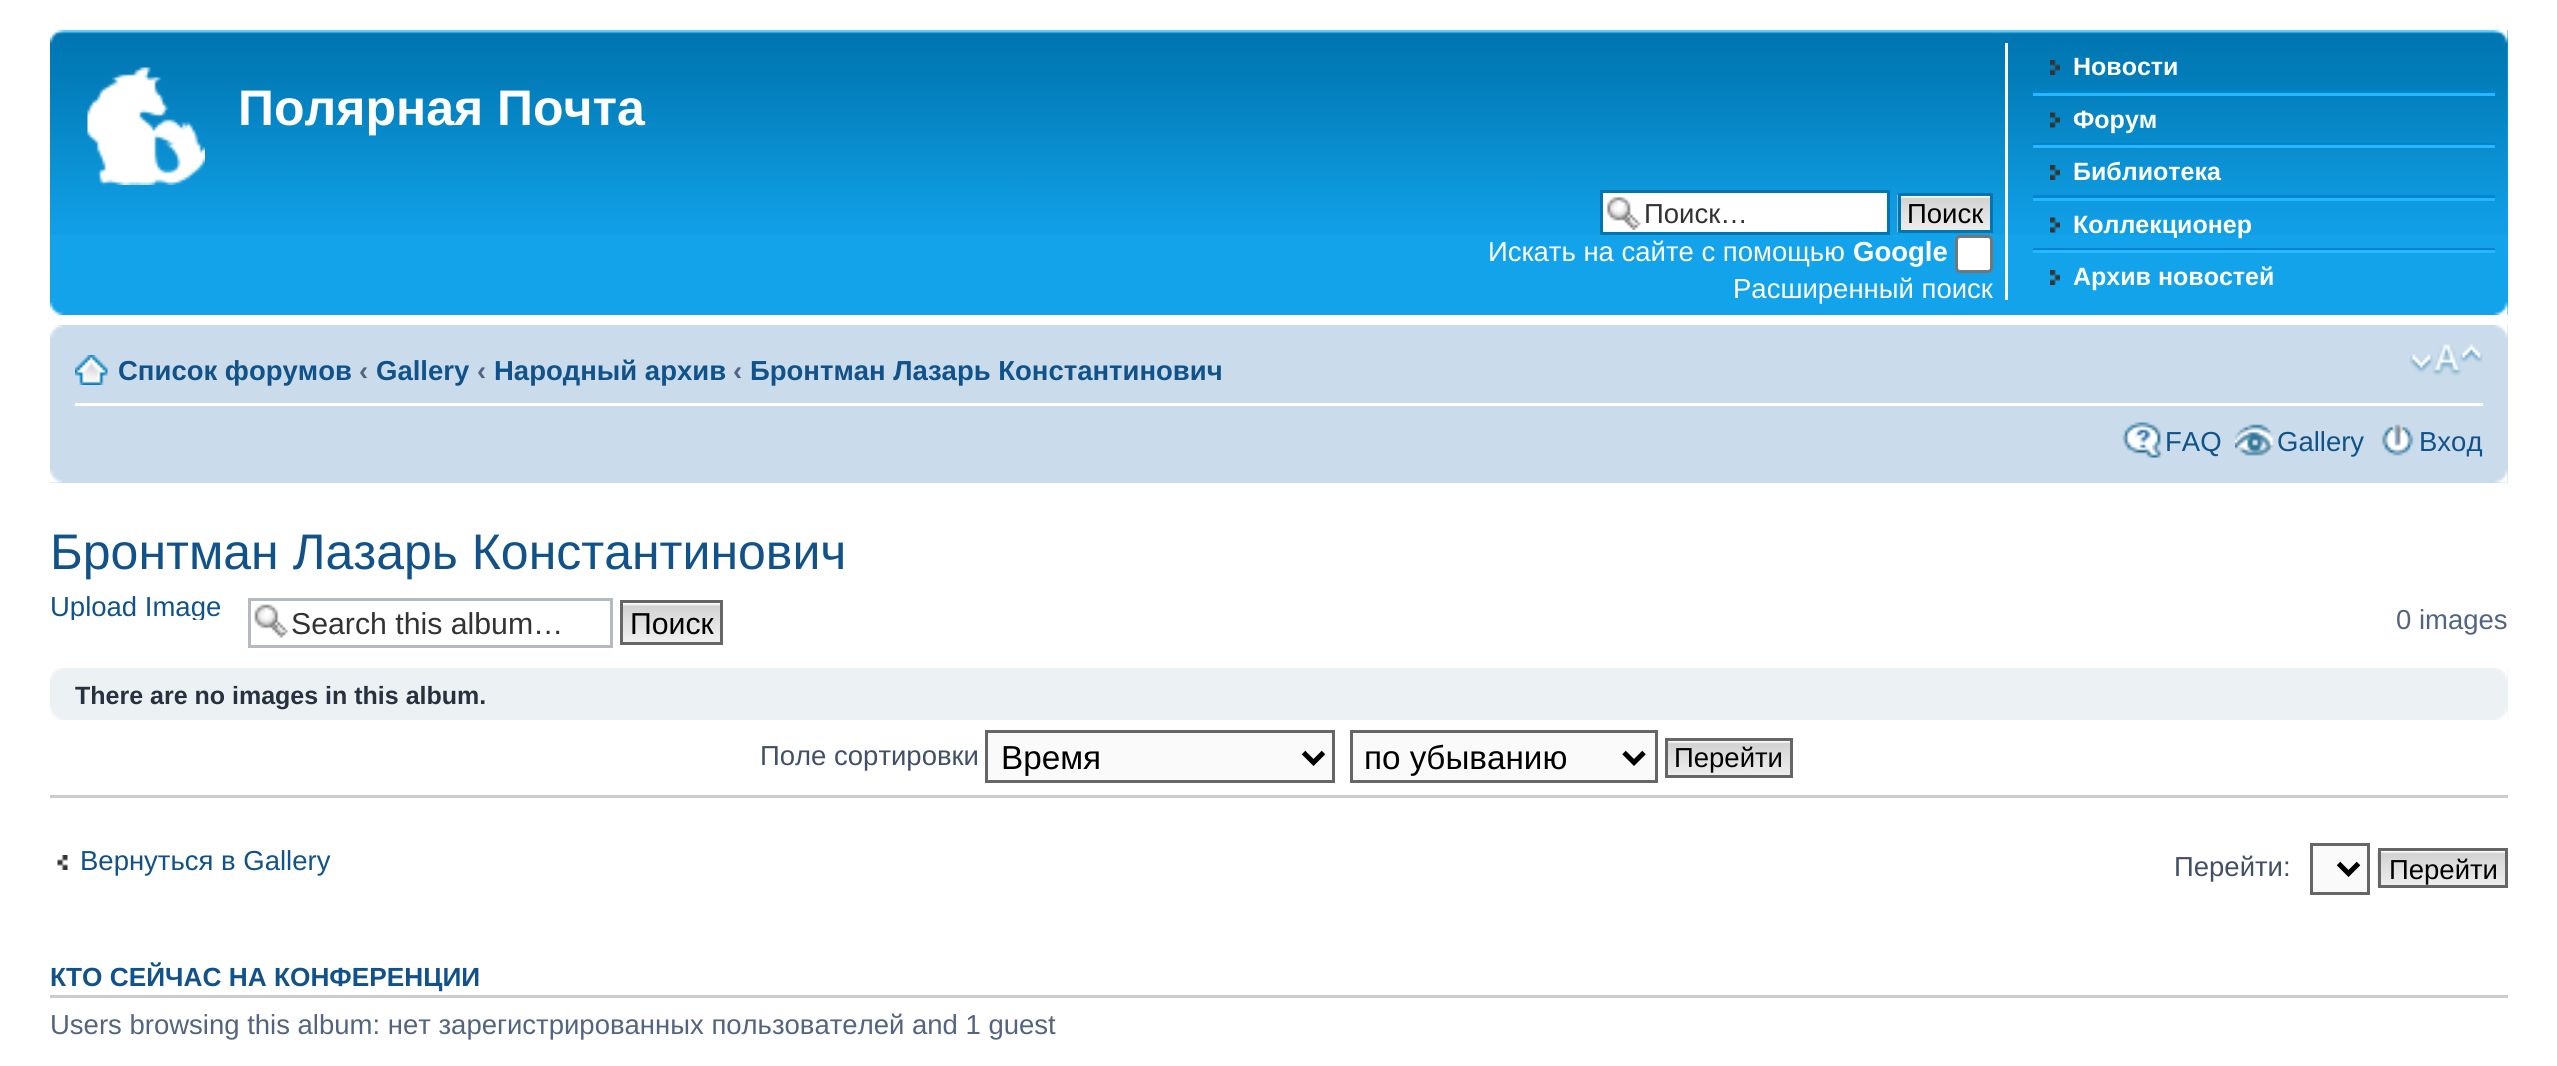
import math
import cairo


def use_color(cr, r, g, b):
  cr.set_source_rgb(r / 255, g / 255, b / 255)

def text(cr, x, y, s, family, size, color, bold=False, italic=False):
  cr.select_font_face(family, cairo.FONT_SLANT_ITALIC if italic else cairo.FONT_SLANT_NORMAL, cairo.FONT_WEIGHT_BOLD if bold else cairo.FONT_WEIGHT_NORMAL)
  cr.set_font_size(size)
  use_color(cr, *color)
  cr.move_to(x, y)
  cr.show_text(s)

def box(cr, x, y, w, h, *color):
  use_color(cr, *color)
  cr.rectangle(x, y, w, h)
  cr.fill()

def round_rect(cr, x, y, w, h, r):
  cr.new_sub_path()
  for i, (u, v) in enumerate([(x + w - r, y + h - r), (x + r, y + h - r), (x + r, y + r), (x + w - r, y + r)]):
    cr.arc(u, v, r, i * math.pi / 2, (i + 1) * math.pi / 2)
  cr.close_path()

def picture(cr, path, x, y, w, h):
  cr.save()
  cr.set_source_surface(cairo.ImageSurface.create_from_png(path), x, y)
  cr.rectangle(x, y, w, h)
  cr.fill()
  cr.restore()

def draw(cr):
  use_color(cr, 255, 255, 255)
  cr.paint()
  box(cr, 50, 30, 2458, 285, 18, 163, 235)
  picture(cr, "img_01.png", 50, 30, 2458, 205)
  picture(cr, "img_02.png", 50, 30, 14, 13)
  picture(cr, "img_03.png", 2494, 30, 14, 13)
  picture(cr, "img_04.png", 87, 67, 118, 118)
  box(cr, 2005, 43, 3, 257, 255, 255, 255)
  box(cr, 2033, 90, 462, 3, 0, 132, 204)
  picture(cr, "img_05.png", 2050, 60, 10, 15)
  box(cr, 2033, 93, 462, 3, 38, 183, 255)
  box(cr, 2033, 143, 462, 2, 0, 132, 204)
  picture(cr, "img_06.png", 2050, 112, 10, 16)
  box(cr, 2033, 145, 462, 3, 38, 183, 255)
  box(cr, 2033, 195, 462, 3, 0, 132, 204)
  picture(cr, "img_07.png", 2050, 165, 10, 15)
  box(cr, 2033, 198, 462, 3, 38, 183, 255)
  box(cr, 2033, 248, 462, 2, 0, 132, 204)
  picture(cr, "img_08.png", 2050, 217, 10, 16)
  box(cr, 2033, 250, 462, 3, 38, 183, 255)
  picture(cr, "img_09.png", 2050, 270, 10, 15)
  box(cr, 1603, 193, 284, 39, 255, 255, 255)
  picture(cr, "img_10.png", 1606, 196, 35, 34)
  cr.rectangle(1601.5, 191.5, 287, 42)
  use_color(cr, 0, 117, 176)
  cr.set_line_width(3)
  cr.stroke()
  picture(cr, "img_11.png", 1897, 195, 93, 38)
  cr.rectangle(1899.5, 194.5, 92, 37)
  cr.stroke()
  use_color(cr, 255, 255, 255)
  round_rect(cr, 1956.5, 236.5, 35, 35, 3.5)
  cr.fill_preserve()
  use_color(cr, 118, 118, 118)
  cr.stroke()
  picture(cr, "img_12.png", 50, 302, 14, 13)
  picture(cr, "img_13.png", 2494, 302, 14, 13)
  box(cr, 50, 325, 2458, 158, 202, 220, 235)
  picture(cr, "img_14.png", 50, 325, 13, 13)
  picture(cr, "img_15.png", 2494, 325, 14, 13)
  box(cr, 75, 403, 2408, 3, 255, 255, 255)
  picture(cr, "img_16.png", 75, 355, 33, 30)
  picture(cr, "img_17.png", 2410, 344, 73, 32)
  picture(cr, "img_18.png", 2122, 422, 41, 36)
  picture(cr, "img_19.png", 2235, 424, 39, 32)
  picture(cr, "img_20.png", 2381, 424, 33, 32)
  picture(cr, "img_21.png", 50, 470, 13, 13)
  picture(cr, "img_22.png", 2495, 470, 13, 13)
  picture(cr, "img_23.png", 254, 604, 35, 34)
  cr.rectangle(249.5, 599.5, 362, 47)
  use_color(cr, 180, 186, 192)
  cr.stroke()
  picture(cr, "img_24.png", 623, 603, 97, 39)
  cr.rectangle(621.5, 601.5, 100, 42)
  use_color(cr, 102, 102, 102)
  cr.stroke()
  box(cr, 50, 668, 2458, 52, 236, 241, 243)
  picture(cr, "img_25.png", 50, 668, 12, 12)
  picture(cr, "img_26.png", 2496, 668, 12, 12)
  picture(cr, "img_27.png", 50, 708, 12, 12)
  picture(cr, "img_28.png", 2496, 708, 12, 12)
  use_color(cr, 250, 250, 250)
  cr.rectangle(986.5, 731.5, 347, 50)
  cr.fill_preserve()
  use_color(cr, 102, 102, 102)
  cr.stroke()
  cr.new_path()
  cr.move_to(1303.5, 752.5)
  cr.line_to(1313.5, 762.5)
  cr.line_to(1323.5, 752.5)
  use_color(cr, 0, 0, 0)
  cr.set_line_width(5)
  cr.stroke()
  use_color(cr, 250, 250, 250)
  cr.rectangle(1351.5, 731.5, 305, 50)
  cr.fill_preserve()
  use_color(cr, 102, 102, 102)
  cr.set_line_width(3)
  cr.stroke()
  cr.new_path()
  cr.move_to(1624, 752.5)
  cr.line_to(1634, 762.5)
  cr.line_to(1644, 752.5)
  use_color(cr, 0, 0, 0)
  cr.set_line_width(5)
  cr.stroke()
  picture(cr, "img_29.png", 1668, 741, 122, 34)
  cr.rectangle(1666.5, 739.5, 125, 37)
  use_color(cr, 102, 102, 102)
  cr.set_line_width(3)
  cr.stroke()
  box(cr, 50, 795, 2458, 3, 204, 204, 204)
  picture(cr, "img_30.png", 57, 855, 11, 15)
  use_color(cr, 250, 250, 250)
  cr.rectangle(2311.5, 844.5, 57, 49)
  cr.fill_preserve()
  use_color(cr, 102, 102, 102)
  cr.stroke()
  cr.new_path()
  cr.move_to(2338.5, 863.5)
  cr.line_to(2348.5, 873.5)
  cr.line_to(2358.5, 863.5)
  use_color(cr, 0, 0, 0)
  cr.set_line_width(5)
  cr.stroke()
  picture(cr, "img_31.png", 2377, 850, 128, 38)
  cr.rectangle(2379.5, 849.5, 127, 37)
  use_color(cr, 102, 102, 102)
  cr.set_line_width(3)
  cr.stroke()
  box(cr, 50, 995, 2458, 3, 204, 204, 204)
  text(cr, 238, 125, "Полярная Почта", "Liberation Sans", 50, (255, 255, 255), bold=True)
  text(cr, 2073, 75, "Новости", "Liberation Sans", 25, (255, 255, 255), bold=True)
  text(cr, 2073, 128, "Форум", "Liberation Sans", 25, (255, 255, 255), bold=True)
  text(cr, 2073, 180, "Библиотека", "Liberation Sans", 25, (255, 255, 255), bold=True)
  text(cr, 2073, 233, "Коллекционер", "Liberation Sans", 25, (255, 255, 255), bold=True)
  text(cr, 2073, 285, "Архив новостей", "Liberation Sans", 25, (255, 255, 255), bold=True)
  text(cr, 1644, 223, "Поиск…", "Liberation Sans", 27.5, (51, 51, 51))
  text(cr, 1907, 223, "Поиск", "Liberation Sans", 27.5, (0, 0, 0))
  text(cr, 1488, 261, "Искать на сайте с помощью", "Liberation Sans", 27.5, (255, 255, 255))
  text(cr, 1853, 261, "Google", "Liberation Sans", 27.5, (255, 255, 255), bold=True)
  text(cr, 1733, 298, "Расширенный поиск", "Liberation Sans", 27.5, (255, 255, 255))
  text(cr, 118, 380, "Список форумов", "Liberation Sans", 27.5, (16, 82, 137), bold=True)
  text(cr, 359, 380, "‹", "Liberation Sans", 27.5, (83, 100, 130), bold=True)
  text(cr, 376, 380, "Gallery", "Liberation Sans", 27.5, (16, 82, 137), bold=True)
  text(cr, 477, 380, "‹", "Liberation Sans", 27.5, (83, 100, 130), bold=True)
  text(cr, 494, 380, "Народный архив", "Liberation Sans", 27.5, (16, 82, 137), bold=True)
  text(cr, 733, 380, "‹", "Liberation Sans", 27.5, (83, 100, 130), bold=True)
  text(cr, 750, 380, "Бронтман Лазарь Константинович", "Liberation Sans", 27.5, (16, 82, 137), bold=True)
  text(cr, 2165, 451, "FAQ", "Liberation Sans", 27.5, (16, 82, 137))
  text(cr, 2277, 451, "Gallery", "Liberation Sans", 27.5, (16, 82, 137))
  text(cr, 2419, 451, "Вход", "Liberation Sans", 27.5, (16, 82, 137))
  text(cr, 50, 569, "Бронтман Лазарь Константинович", "Liberation Sans", 50, (16, 82, 137))
  cr.save()
  cr.rectangle(50, 590, 173, 30)
  cr.clip()
  text(cr, 50, 616, "Upload Image", "Liberation Sans", 27.5, (16, 82, 137))
  cr.restore()
  text(cr, 291, 634, "Search this album…", "Liberation Sans", 30.25, (51, 51, 51))
  text(cr, 630, 634, "Поиск", "Liberation Sans", 30.25, (0, 0, 0))
  text(cr, 2396, 629, "0 images", "Liberation Sans", 27.5, (83, 100, 130))
  text(cr, 75, 704, "There are no images in this album.", "Liberation Sans", 25, (40, 49, 63), bold=True)
  text(cr, 760, 765, "Поле сортировки", "Liberation Sans", 27.5, (66, 80, 103))
  text(cr, 1001, 769, "Время", "Liberation Sans", 33.25, (0, 0, 0))
  text(cr, 1364, 769, "по убыванию", "Liberation Sans", 33.25, (0, 0, 0))
  text(cr, 1674, 767, "Перейти", "Liberation Sans", 27.5, (0, 0, 0))
  text(cr, 80, 870, "Вернуться в Gallery", "Liberation Sans", 27.5, (16, 82, 137))
  text(cr, 2174, 876, "Перейти:", "Liberation Sans", 27.5, (66, 80, 103))
  text(cr, 2389, 879, "Перейти", "Liberation Sans", 27.5, (0, 0, 0))
  text(cr, 50, 986, "КТО СЕЙЧАС НА КОНФЕРЕНЦИИ", "Liberation Sans", 26.25, (16, 82, 137), bold=True)
  text(cr, 50, 1034, "Users browsing this album: нет зарегистрированных пользователей and 1 guest", "Liberation Sans", 27.5, (83, 100, 130))


surface = cairo.ImageSurface(cairo.FORMAT_RGB24, 2557, 1066)
cr = cairo.Context(surface)
options = cairo.FontOptions()
options.set_hint_metrics(cairo.HINT_METRICS_OFF)
options.set_hint_style(cairo.HINT_STYLE_NONE)
cr.set_font_options(options)
cr.set_miter_limit(4)
draw(cr)
surface.write_to_png("out.png")
